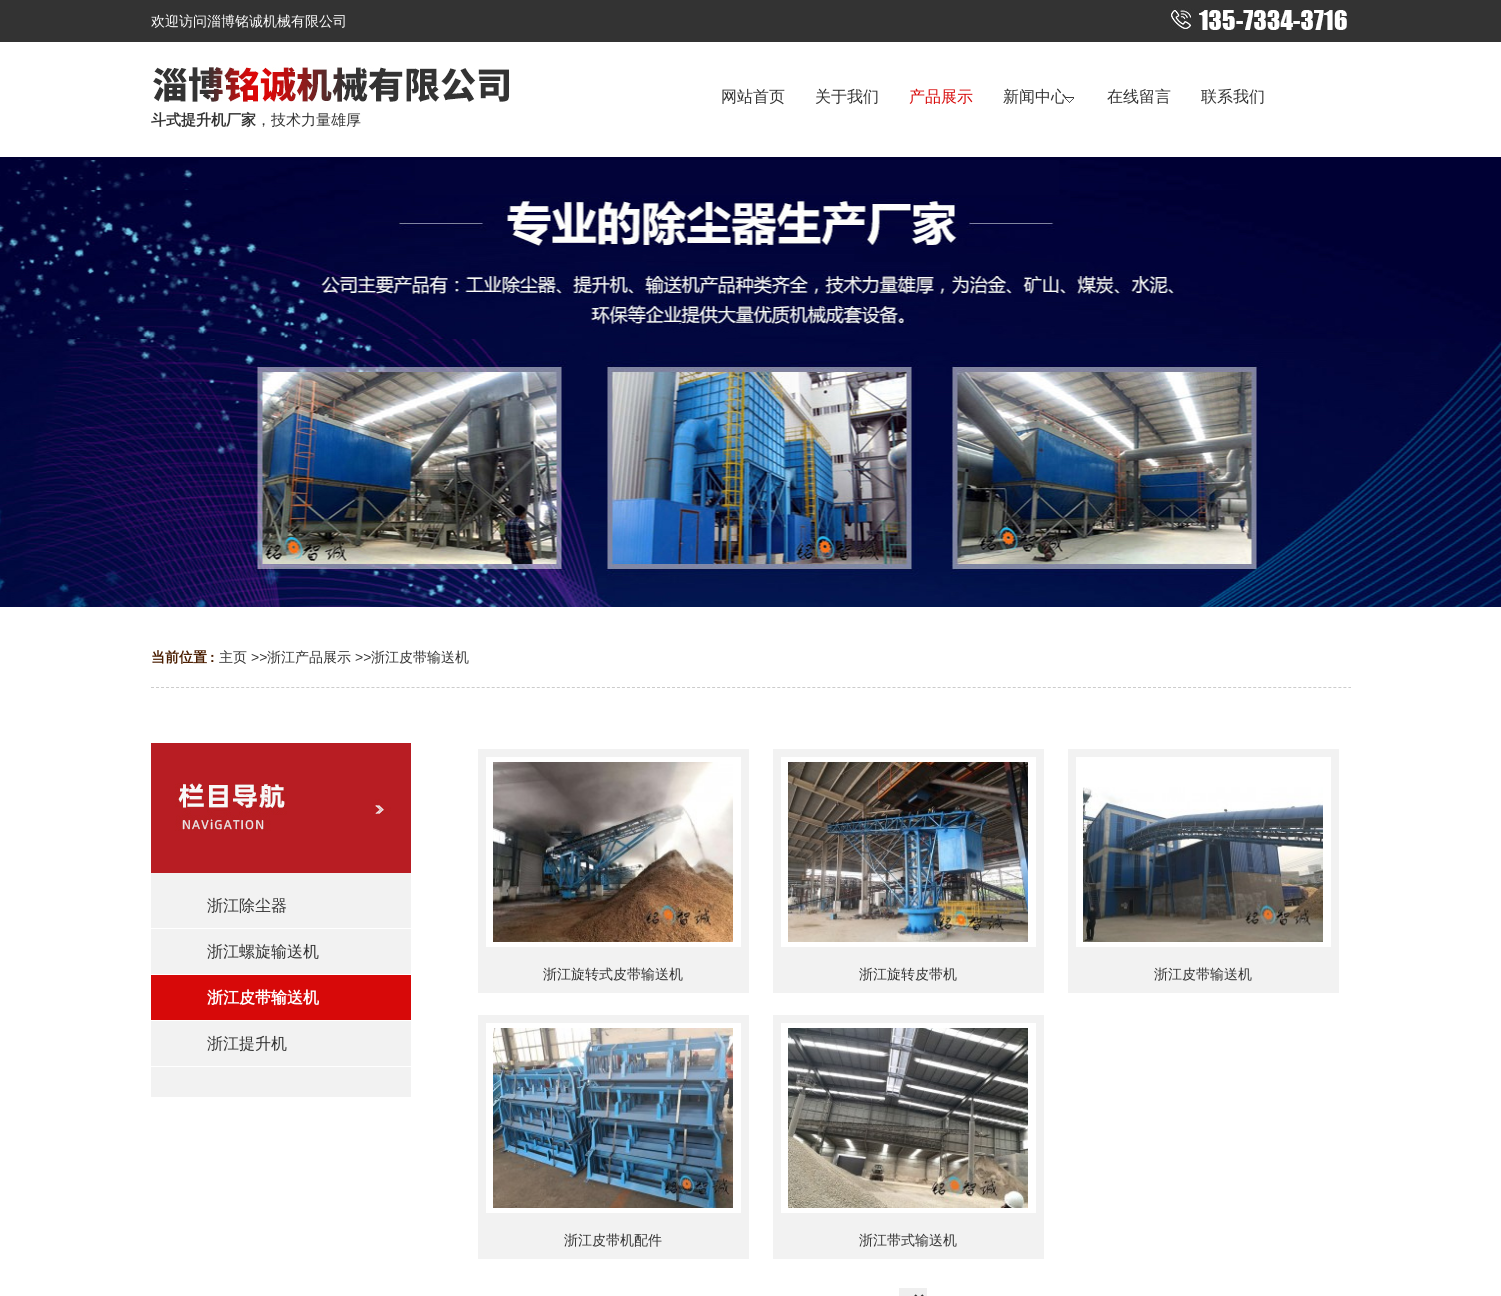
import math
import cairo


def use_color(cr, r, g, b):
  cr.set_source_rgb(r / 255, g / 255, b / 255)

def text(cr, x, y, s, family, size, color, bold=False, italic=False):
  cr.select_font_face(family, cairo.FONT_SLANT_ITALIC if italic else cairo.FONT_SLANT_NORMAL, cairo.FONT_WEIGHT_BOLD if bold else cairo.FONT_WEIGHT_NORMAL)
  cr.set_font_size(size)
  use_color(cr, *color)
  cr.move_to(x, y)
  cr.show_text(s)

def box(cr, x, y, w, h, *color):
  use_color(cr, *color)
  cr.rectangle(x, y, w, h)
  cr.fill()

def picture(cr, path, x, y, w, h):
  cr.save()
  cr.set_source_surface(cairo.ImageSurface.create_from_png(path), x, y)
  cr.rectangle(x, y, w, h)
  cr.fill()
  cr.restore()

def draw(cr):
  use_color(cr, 255, 255, 255)
  cr.paint()
  box(cr, 0, 0, 1501, 42, 51, 51, 51)
  picture(cr, "img_01.png", 1171, 8, 176, 22)
  picture(cr, "img_03.png", 153, 67, 356, 35)
  picture(cr, "img_04.png", 0, 157, 1501, 450)
  cr.new_path()
  cr.move_to(151, 687.5)
  cr.line_to(1351, 687.5)
  use_color(cr, 204, 204, 204)
  cr.set_line_width(1)
  cr.set_dash([3, 2.01])
  cr.stroke()
  box(cr, 151, 873, 260, 224, 242, 242, 242)
  picture(cr, "img_05.png", 151, 743, 260, 130)
  box(cr, 151, 928, 260, 1, 255, 255, 255)
  box(cr, 151, 974, 260, 1, 255, 255, 255)
  box(cr, 151, 975, 260, 45, 215, 9, 9)
  box(cr, 151, 1020, 260, 1, 255, 255, 255)
  box(cr, 151, 1066, 260, 1, 255, 255, 255)
  cr.rectangle(482, 753, 263, 198)
  use_color(cr, 242, 242, 242)
  cr.set_line_width(8)
  cr.set_dash([])
  cr.stroke()
  picture(cr, "img_06.png", 493, 762, 240, 180)
  box(cr, 478, 955, 271, 38, 242, 242, 242)
  cr.rectangle(777, 753, 263, 198)
  cr.stroke()
  picture(cr, "img_07.png", 788, 762, 240, 180)
  box(cr, 773, 955, 271, 38, 242, 242, 242)
  cr.rectangle(1072, 753, 263, 198)
  cr.stroke()
  picture(cr, "img_08.png", 1083, 787, 240, 155)
  box(cr, 1068, 955, 271, 38, 242, 242, 242)
  cr.rectangle(482, 1019, 263, 198)
  cr.stroke()
  picture(cr, "img_09.png", 493, 1028, 240, 180)
  box(cr, 478, 1221, 271, 38, 242, 242, 242)
  cr.rectangle(777, 1019, 263, 198)
  cr.stroke()
  picture(cr, "img_10.png", 788, 1028, 240, 180)
  box(cr, 773, 1221, 271, 38, 242, 242, 242)
  box(cr, 899, 1288, 28, 8, 239, 239, 239)
  cr.new_path()
  cr.move_to(915, 1295)
  cr.line_to(919, 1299)
  cr.line_to(923, 1295)
  use_color(cr, 51, 51, 51)
  cr.set_line_width(2)
  cr.stroke()
  text(cr, 151, 26, "欢迎访问淄博铭诚机械有限公司", "WenQuanYi Zen Hei Medium", 14, (255, 255, 255))
  text(cr, 721, 102, "网站首页", "WenQuanYi Zen Hei Medium", 16, (51, 51, 51))
  text(cr, 815, 102, "关于我们", "WenQuanYi Zen Hei Medium", 16, (51, 51, 51))
  text(cr, 909, 102, "产品展示", "WenQuanYi Zen Hei Medium", 16, (215, 9, 9))
  text(cr, 1003, 102, "新闻中心", "WenQuanYi Zen Hei Medium", 16, (51, 51, 51))
  picture(cr, "img_02.png", 1065, 97, 9, 6)
  text(cr, 1107, 102, "在线留言", "WenQuanYi Zen Hei Medium", 16, (51, 51, 51))
  text(cr, 1201, 102, "联系我们", "WenQuanYi Zen Hei Medium", 16, (51, 51, 51))
  text(cr, 151, 125, "斗式提升机厂家", "WenQuanYi Zen Hei", 15, (51, 51, 51), bold=True)
  text(cr, 256, 125, "，技术力量雄厚", "WenQuanYi Zen Hei Medium", 15, (51, 51, 51))
  text(cr, 151, 662, "当前位置", "WenQuanYi Zen Hei", 14, (74, 29, 0), bold=True)
  text(cr, 210, 662, ":", "Liberation Sans", 14, (74, 29, 0), bold=True)
  text(cr, 219, 662, "主页", "WenQuanYi Zen Hei Medium", 14, (51, 51, 51))
  text(cr, 251, 662, ">>", "Liberation Sans", 14, (51, 51, 51))
  text(cr, 267, 662, "浙江产品展示", "WenQuanYi Zen Hei Medium", 14, (51, 51, 51))
  text(cr, 355, 662, ">>", "Liberation Sans", 14, (51, 51, 51))
  text(cr, 371, 662, "浙江皮带输送机", "WenQuanYi Zen Hei Medium", 14, (51, 51, 51))
  text(cr, 207, 911, "浙江除尘器", "WenQuanYi Zen Hei Medium", 16, (51, 51, 51))
  text(cr, 207, 957, "浙江螺旋输送机", "WenQuanYi Zen Hei Medium", 16, (51, 51, 51))
  text(cr, 207, 1003, "浙江皮带输送机", "WenQuanYi Zen Hei", 16, (255, 255, 255), bold=True)
  text(cr, 207, 1049, "浙江提升机", "WenQuanYi Zen Hei Medium", 16, (51, 51, 51))
  text(cr, 543, 979, "浙江旋转式皮带输送机", "WenQuanYi Zen Hei Medium", 14, (51, 51, 51))
  text(cr, 859, 979, "浙江旋转皮带机", "WenQuanYi Zen Hei Medium", 14, (51, 51, 51))
  text(cr, 1154, 979, "浙江皮带输送机", "WenQuanYi Zen Hei Medium", 14, (51, 51, 51))
  text(cr, 564, 1245, "浙江皮带机配件", "WenQuanYi Zen Hei Medium", 14, (51, 51, 51))
  text(cr, 859, 1245, "浙江带式输送机", "WenQuanYi Zen Hei Medium", 14, (51, 51, 51))


surface = cairo.ImageSurface(cairo.FORMAT_RGB24, 1501, 1296)
cr = cairo.Context(surface)
options = cairo.FontOptions()
options.set_hint_metrics(cairo.HINT_METRICS_OFF)
options.set_hint_style(cairo.HINT_STYLE_NONE)
cr.set_font_options(options)
cr.set_miter_limit(4)
draw(cr)
surface.write_to_png("out.png")
